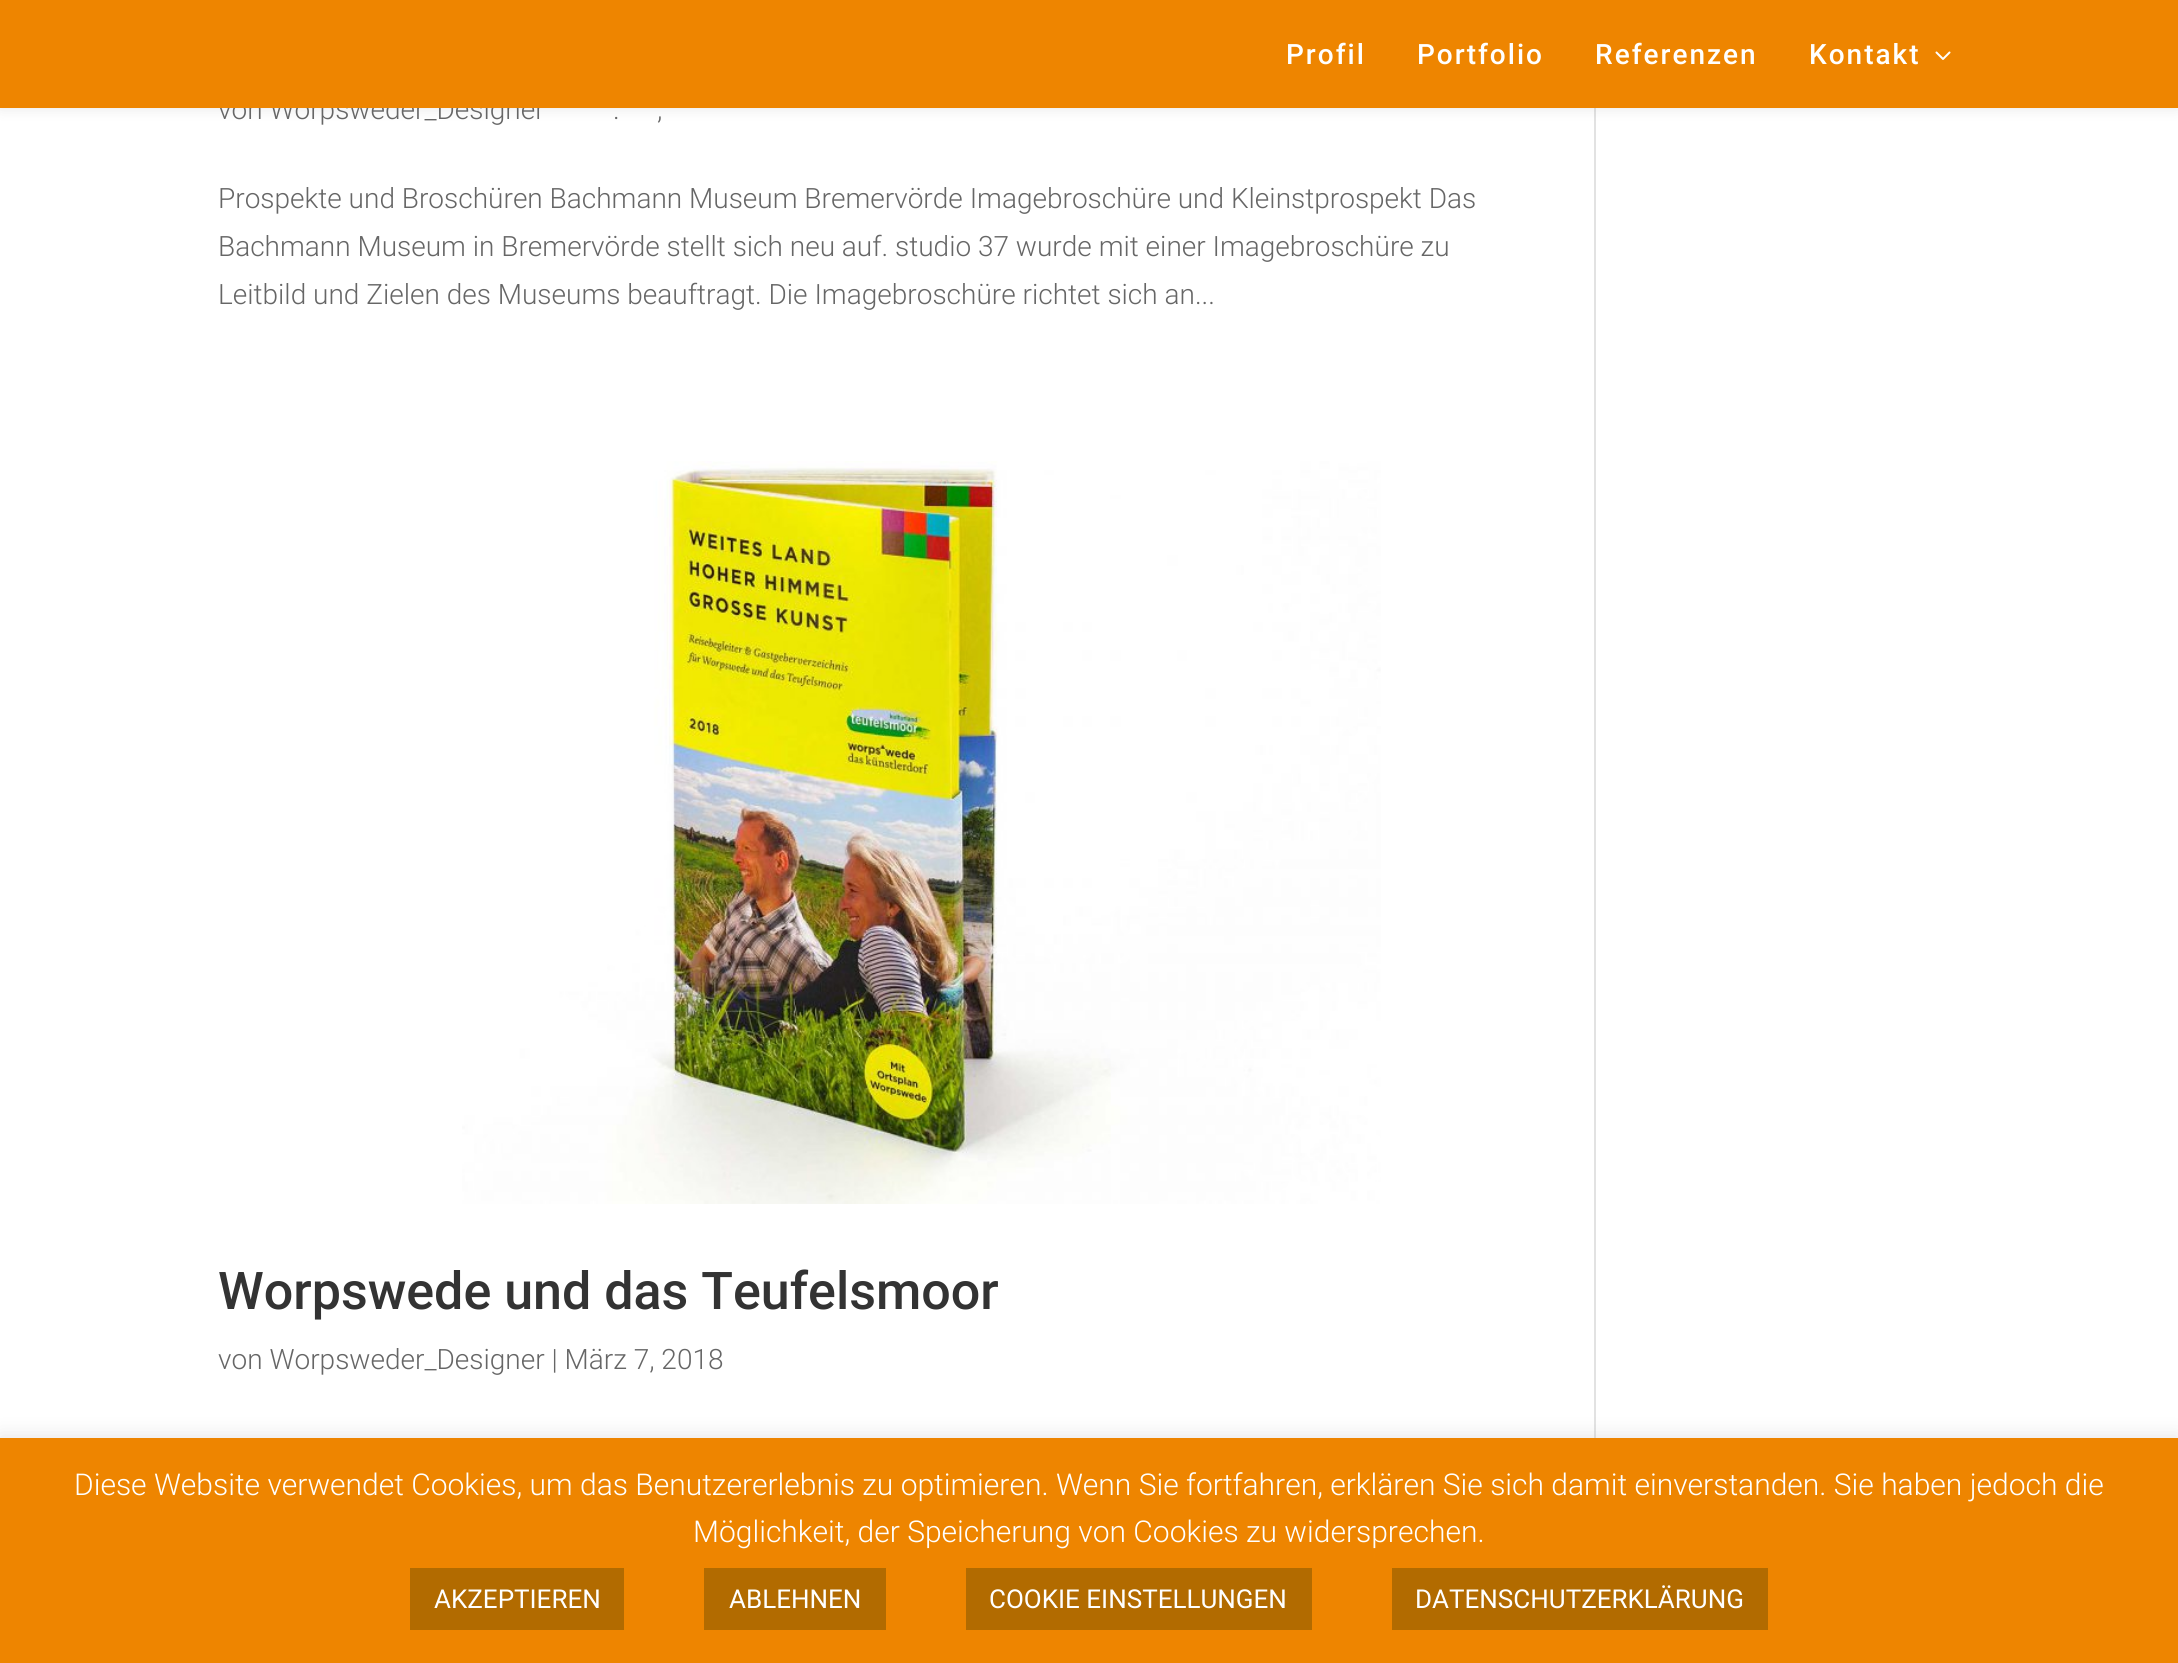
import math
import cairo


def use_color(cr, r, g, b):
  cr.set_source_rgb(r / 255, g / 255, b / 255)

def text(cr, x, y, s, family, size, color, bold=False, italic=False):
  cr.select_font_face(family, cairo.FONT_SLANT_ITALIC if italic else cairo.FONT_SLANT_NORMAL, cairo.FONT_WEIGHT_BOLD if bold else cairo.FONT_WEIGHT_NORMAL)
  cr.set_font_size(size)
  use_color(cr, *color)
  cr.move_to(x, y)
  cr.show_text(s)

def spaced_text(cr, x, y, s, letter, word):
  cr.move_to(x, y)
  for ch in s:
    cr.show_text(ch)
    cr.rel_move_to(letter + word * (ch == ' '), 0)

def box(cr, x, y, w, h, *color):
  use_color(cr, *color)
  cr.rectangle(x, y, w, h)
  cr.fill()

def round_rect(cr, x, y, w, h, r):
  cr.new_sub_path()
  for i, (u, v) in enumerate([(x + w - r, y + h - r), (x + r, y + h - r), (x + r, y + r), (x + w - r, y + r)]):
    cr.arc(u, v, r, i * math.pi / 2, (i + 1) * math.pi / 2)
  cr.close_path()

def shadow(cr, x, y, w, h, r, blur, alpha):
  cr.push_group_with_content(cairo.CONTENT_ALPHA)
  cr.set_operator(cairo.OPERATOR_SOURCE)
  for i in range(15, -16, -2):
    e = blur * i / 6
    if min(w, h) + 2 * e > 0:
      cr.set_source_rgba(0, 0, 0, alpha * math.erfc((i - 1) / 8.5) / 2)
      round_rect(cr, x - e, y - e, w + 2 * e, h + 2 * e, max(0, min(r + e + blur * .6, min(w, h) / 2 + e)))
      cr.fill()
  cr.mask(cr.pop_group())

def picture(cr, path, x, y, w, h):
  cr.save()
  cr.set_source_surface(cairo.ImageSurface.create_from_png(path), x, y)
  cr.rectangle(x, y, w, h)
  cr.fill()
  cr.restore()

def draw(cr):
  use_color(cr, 255, 255, 255)
  cr.paint()
  box(cr, 1594, 108, 2, 1330, 226, 226, 226)
  use_color(cr, 0, 0, 0)
  shadow(cr, 0, 0, 2178, 108, 0, 7, 0.1)
  picture(cr, "img_02.png", 462, 461, 919, 743)
  use_color(cr, 172, 171, 171)
  shadow(cr, 0, 1436, 2178, 226, 0, 10, 0.3)
  box(cr, 0, 1438, 2178, 225, 238, 133, 0)
  box(cr, 410, 1568, 214, 62, 178, 107, 0)
  box(cr, 704, 1568, 182, 62, 178, 107, 0)
  box(cr, 966, 1568, 346, 62, 178, 107, 0)
  box(cr, 1392, 1568, 376, 62, 178, 107, 0)
  text(cr, 218, 119, "von Worpsweder_Designer", "Roboto Light", 28, (102, 102, 102))
  box(cr, 0, 0, 2178, 108, 238, 133, 0)
  picture(cr, "img_01.png", 1935, 51, 16, 9)
  cr.select_font_face("Roboto Medium")
  use_color(cr, 255, 255, 255)
  spaced_text(cr, 1809, 64, "Kontakt", 2, 0)
  spaced_text(cr, 1595, 64, "Referenzen", 2, 0)
  spaced_text(cr, 1417, 64, "Portfolio", 2, 0)
  spaced_text(cr, 1286, 64, "Profil", 2, 0)
  text(cr, 613, 119, ".", "Roboto Light", 28, (102, 102, 102))
  text(cr, 657, 119, ",", "Roboto Light", 28, (102, 102, 102))
  text(cr, 218, 208, "Prospekte und Broschüren Bachmann Museum Bremervörde Imagebroschüre und Kleinstprospekt Das", "Roboto Light", 28, (102, 102, 102))
  text(cr, 218, 256, "Bachmann Museum in Bremervörde stellt sich neu auf. studio 37 wurde mit einer Imagebroschüre zu", "Roboto Light", 28, (102, 102, 102))
  text(cr, 218, 304, "Leitbild und Zielen des Museums beauftragt. Die Imagebroschüre richtet sich an...", "Roboto Light", 28, (102, 102, 102))
  text(cr, 218, 1309, "Worpswede und das Teufelsmoor", "Roboto Medium", 52, (51, 51, 51))
  text(cr, 218, 1369, "von Worpsweder_Designer | März 7, 2018", "Roboto Light", 28, (102, 102, 102))
  text(cr, 74, 1495, "Diese Website verwendet Cookies, um das Benutzererlebnis zu optimieren. Wenn Sie fortfahren, erklären Sie sich damit einverstanden. Sie haben jedoch die", "Roboto Light", 30, (255, 255, 255))
  text(cr, 693, 1542, "Möglichkeit, der Speicherung von Cookies zu widersprechen.", "Roboto Light", 30, (255, 255, 255))
  text(cr, 434, 1608, "AKZEPTIEREN", "Roboto", 26, (255, 255, 255))
  text(cr, 729, 1608, "ABLEHNEN", "Roboto", 26, (255, 255, 255))
  text(cr, 989, 1608, "COOKIE EINSTELLUNGEN", "Roboto", 26, (255, 255, 255))
  text(cr, 1415, 1608, "DATENSCHUTZERKLÄRUNG", "Roboto", 26, (255, 255, 255))


surface = cairo.ImageSurface(cairo.FORMAT_RGB24, 2178, 1663)
cr = cairo.Context(surface)
options = cairo.FontOptions()
options.set_hint_metrics(cairo.HINT_METRICS_OFF)
options.set_hint_style(cairo.HINT_STYLE_NONE)
cr.set_font_options(options)
cr.set_miter_limit(4)
draw(cr)
surface.write_to_png("out.png")
